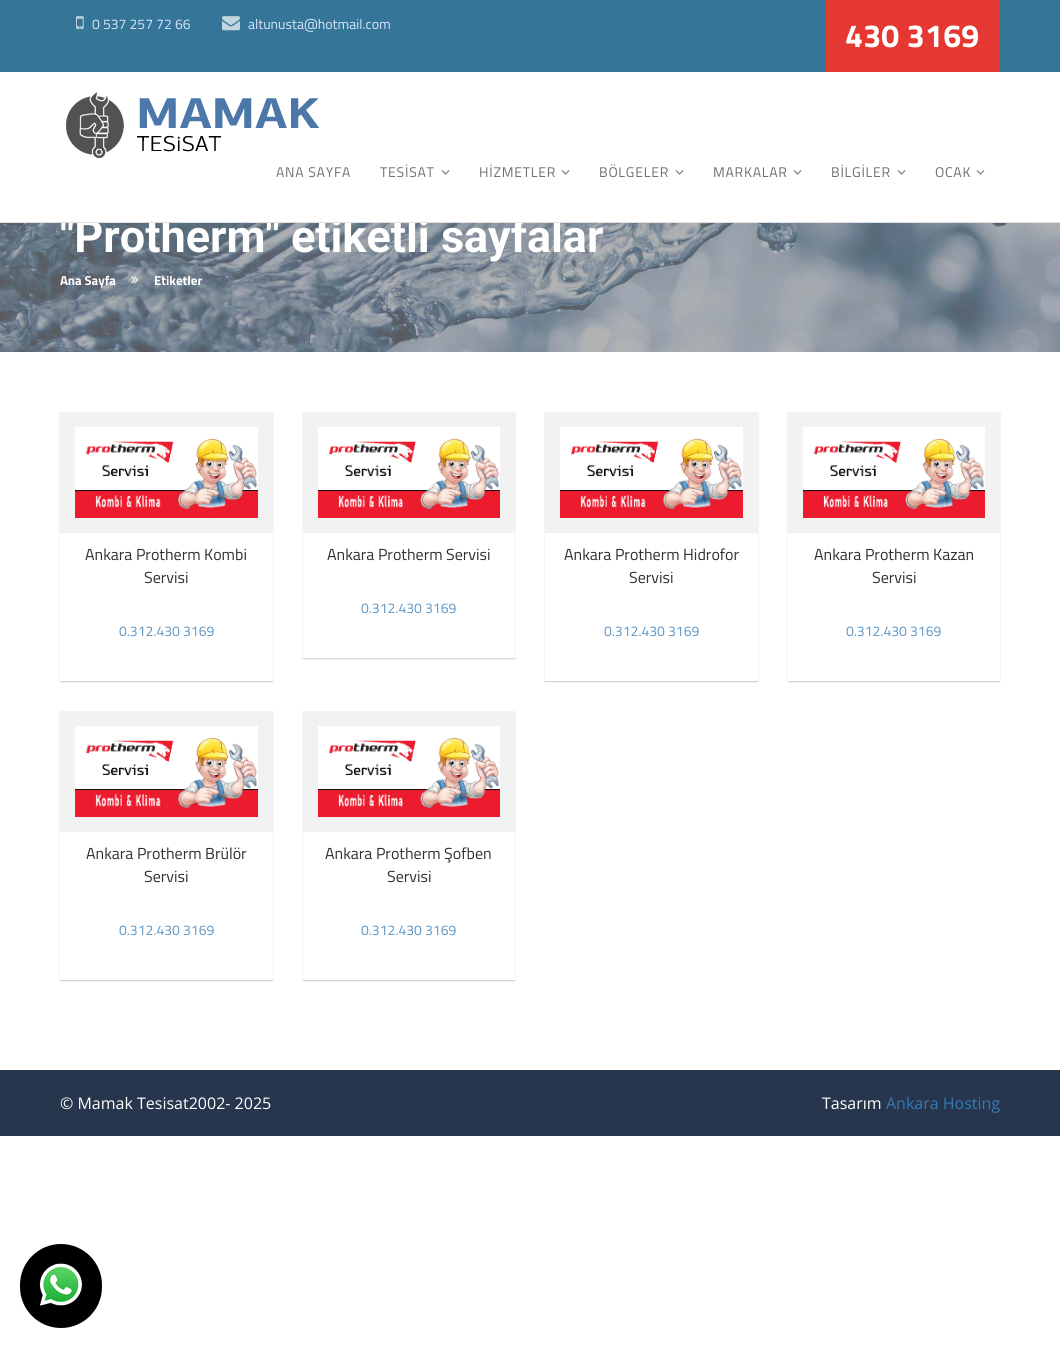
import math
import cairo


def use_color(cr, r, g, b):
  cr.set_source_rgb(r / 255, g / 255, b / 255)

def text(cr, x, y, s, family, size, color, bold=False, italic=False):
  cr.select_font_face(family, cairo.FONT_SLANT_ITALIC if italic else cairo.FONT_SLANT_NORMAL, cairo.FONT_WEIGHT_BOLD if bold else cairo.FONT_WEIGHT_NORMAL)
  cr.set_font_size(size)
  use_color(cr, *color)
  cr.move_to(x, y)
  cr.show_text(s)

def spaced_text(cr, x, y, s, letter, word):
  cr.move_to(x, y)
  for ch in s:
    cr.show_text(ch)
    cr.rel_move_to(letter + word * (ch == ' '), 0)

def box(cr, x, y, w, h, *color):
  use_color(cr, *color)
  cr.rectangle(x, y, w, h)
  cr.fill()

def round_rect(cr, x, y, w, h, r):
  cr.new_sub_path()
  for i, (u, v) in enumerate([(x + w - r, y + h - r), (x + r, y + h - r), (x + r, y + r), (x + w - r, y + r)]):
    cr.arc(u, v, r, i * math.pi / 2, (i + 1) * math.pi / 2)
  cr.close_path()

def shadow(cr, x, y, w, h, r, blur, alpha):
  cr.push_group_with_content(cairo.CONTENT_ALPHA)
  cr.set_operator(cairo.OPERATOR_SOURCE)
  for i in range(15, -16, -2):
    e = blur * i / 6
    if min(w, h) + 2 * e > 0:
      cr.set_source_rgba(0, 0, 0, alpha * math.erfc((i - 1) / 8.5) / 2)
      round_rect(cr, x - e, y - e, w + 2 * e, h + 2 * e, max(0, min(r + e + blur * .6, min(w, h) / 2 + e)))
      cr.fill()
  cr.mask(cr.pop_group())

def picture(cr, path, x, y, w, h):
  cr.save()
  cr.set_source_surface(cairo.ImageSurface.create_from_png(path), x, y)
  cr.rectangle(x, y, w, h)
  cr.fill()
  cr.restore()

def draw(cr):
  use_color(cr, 255, 255, 255)
  cr.paint()
  box(cr, 0, 0, 1060, 72, 53, 118, 152)
  picture(cr, "img_01.png", 76, 16, 8, 13)
  picture(cr, "img_02.png", 222, 16, 18, 15)
  box(cr, 825, 0, 175, 72, 229, 56, 50)
  picture(cr, "img_03.png", 66, 92, 254, 67)
  picture(cr, "img_04.png", 441, 170, 9, 5)
  picture(cr, "img_04.png", 561, 170, 9, 5)
  picture(cr, "img_04.png", 675, 170, 9, 5)
  picture(cr, "img_04.png", 793, 170, 9, 5)
  picture(cr, "img_04.png", 897, 170, 9, 5)
  picture(cr, "img_04.png", 976, 170, 9, 5)
  picture(cr, "img_05.png", 0, 223, 1060, 129)
  picture(cr, "img_06.png", 131, 276, 7, 8)
  cr.save()
  cr.set_fill_rule(cairo.FILL_RULE_EVEN_ODD)
  cr.new_path()
  cr.move_to(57, 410)
  cr.line_to(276, 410)
  cr.line_to(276, 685)
  cr.line_to(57, 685)
  cr.close_path()
  cr.move_to(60, 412)
  cr.line_to(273, 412)
  cr.line_to(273, 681)
  cr.line_to(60, 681)
  cr.close_path()
  cr.clip()
  use_color(cr, 0, 0, 0)
  shadow(cr, 60, 413, 213, 269, 0, 0.5, 0.2)
  cr.restore()
  box(cr, 60, 412, 213, 121, 242, 242, 242)
  picture(cr, "img_07.png", 75, 427, 183, 91)
  cr.save()
  cr.set_fill_rule(cairo.FILL_RULE_EVEN_ODD)
  cr.new_path()
  cr.move_to(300, 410)
  cr.line_to(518, 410)
  cr.line_to(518, 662)
  cr.line_to(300, 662)
  cr.close_path()
  cr.move_to(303, 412)
  cr.line_to(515, 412)
  cr.line_to(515, 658)
  cr.line_to(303, 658)
  cr.close_path()
  cr.clip()
  use_color(cr, 0, 0, 0)
  shadow(cr, 303, 413, 212, 246, 0, 0.5, 0.2)
  cr.restore()
  box(cr, 303, 412, 212, 121, 242, 242, 242)
  picture(cr, "img_08.png", 318, 427, 182, 91)
  cr.save()
  cr.set_fill_rule(cairo.FILL_RULE_EVEN_ODD)
  cr.new_path()
  cr.move_to(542, 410)
  cr.line_to(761, 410)
  cr.line_to(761, 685)
  cr.line_to(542, 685)
  cr.close_path()
  cr.move_to(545, 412)
  cr.line_to(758, 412)
  cr.line_to(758, 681)
  cr.line_to(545, 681)
  cr.close_path()
  cr.clip()
  use_color(cr, 0, 0, 0)
  shadow(cr, 545, 413, 213, 269, 0, 0.5, 0.2)
  cr.restore()
  box(cr, 545, 412, 213, 121, 242, 242, 242)
  picture(cr, "img_07.png", 560, 427, 183, 91)
  cr.save()
  cr.set_fill_rule(cairo.FILL_RULE_EVEN_ODD)
  cr.new_path()
  cr.move_to(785, 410)
  cr.line_to(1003, 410)
  cr.line_to(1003, 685)
  cr.line_to(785, 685)
  cr.close_path()
  cr.move_to(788, 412)
  cr.line_to(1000, 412)
  cr.line_to(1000, 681)
  cr.line_to(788, 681)
  cr.close_path()
  cr.clip()
  use_color(cr, 0, 0, 0)
  shadow(cr, 788, 413, 212, 269, 0, 0.5, 0.2)
  cr.restore()
  box(cr, 788, 412, 212, 121, 242, 242, 242)
  picture(cr, "img_09.png", 803, 427, 182, 91)
  cr.save()
  cr.set_fill_rule(cairo.FILL_RULE_EVEN_ODD)
  cr.new_path()
  cr.move_to(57, 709)
  cr.line_to(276, 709)
  cr.line_to(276, 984)
  cr.line_to(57, 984)
  cr.close_path()
  cr.move_to(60, 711)
  cr.line_to(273, 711)
  cr.line_to(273, 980)
  cr.line_to(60, 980)
  cr.close_path()
  cr.clip()
  use_color(cr, 0, 0, 0)
  shadow(cr, 60, 712, 213, 269, 0, 0.5, 0.2)
  cr.restore()
  box(cr, 60, 711, 213, 121, 242, 242, 242)
  picture(cr, "img_07.png", 75, 726, 183, 91)
  cr.save()
  cr.set_fill_rule(cairo.FILL_RULE_EVEN_ODD)
  cr.new_path()
  cr.move_to(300, 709)
  cr.line_to(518, 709)
  cr.line_to(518, 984)
  cr.line_to(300, 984)
  cr.close_path()
  cr.move_to(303, 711)
  cr.line_to(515, 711)
  cr.line_to(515, 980)
  cr.line_to(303, 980)
  cr.close_path()
  cr.clip()
  use_color(cr, 0, 0, 0)
  shadow(cr, 303, 712, 212, 269, 0, 0.5, 0.2)
  cr.restore()
  box(cr, 303, 711, 212, 121, 242, 242, 242)
  picture(cr, "img_08.png", 318, 726, 182, 91)
  box(cr, 0, 1070, 1060, 66, 39, 53, 77)
  use_color(cr, 0, 0, 0)
  round_rect(cr, 20, 1244, 82, 84, 41)
  cr.fill()
  picture(cr, "img_10.png", 39, 1263, 44, 43)
  text(cr, 92, 29, "0 537 257 72 66", "Titillium Web", 14, (216, 229, 251))
  text(cr, 248, 29, "altunusta@hotmail.com", "Titillium Web", 14, (216, 229, 251))
  cr.select_font_face("Titillium Web", cairo.FONT_SLANT_NORMAL, cairo.FONT_WEIGHT_BOLD)
  cr.set_font_size(32)
  use_color(cr, 255, 255, 255)
  spaced_text(cr, 845, 47, "430 3169", 0.25, 0)
  cr.select_font_face("Titillium Web")
  cr.set_font_size(14)
  use_color(cr, 111, 111, 111)
  spaced_text(cr, 276, 177, "ANA SAYFA", 0.75, 0)
  spaced_text(cr, 380, 177, "TESİSAT", 0.75, 0)
  spaced_text(cr, 479, 177, "HİZMETLER", 0.75, 0)
  spaced_text(cr, 599, 177, "BÖLGELER", 0.75, 0)
  spaced_text(cr, 713, 177, "MARKALAR", 0.75, 0)
  spaced_text(cr, 831, 177, "BİLGİLER", 0.75, 0)
  spaced_text(cr, 935, 177, "OCAK", 0.75, 0)
  text(cr, 60, 252, "\"Protherm\" etiketli sayfalar", "Roboto", 45, (255, 255, 255), bold=True)
  box(cr, 0, 222, 1060, 1, 224, 224, 224)
  text(cr, 60, 285, "Ana Sayfa", "Titillium Web", 13, (255, 255, 255), bold=True)
  text(cr, 154, 285, "Etiketler", "Titillium Web", 13, (255, 255, 255), bold=True)
  text(cr, 85, 560, "Ankara Protherm Kombi", "Titillium Web", 16, (48, 48, 48))
  text(cr, 144, 583, "Servisi", "Titillium Web", 16, (48, 48, 48))
  text(cr, 119, 636, "0.312.430 3169", "Titillium Web", 14, (92, 149, 197))
  text(cr, 327, 560, "Ankara Protherm Servisi", "Titillium Web", 16, (48, 48, 48))
  text(cr, 361, 613, "0.312.430 3169", "Titillium Web", 14, (92, 149, 197))
  text(cr, 564, 560, "Ankara Protherm Hidrofor", "Titillium Web", 16, (48, 48, 48))
  text(cr, 629, 583, "Servisi", "Titillium Web", 16, (48, 48, 48))
  text(cr, 604, 636, "0.312.430 3169", "Titillium Web", 14, (92, 149, 197))
  text(cr, 814, 560, "Ankara Protherm Kazan", "Titillium Web", 16, (48, 48, 48))
  text(cr, 872, 583, "Servisi", "Titillium Web", 16, (48, 48, 48))
  text(cr, 846, 636, "0.312.430 3169", "Titillium Web", 14, (92, 149, 197))
  text(cr, 86, 859, "Ankara Protherm Brülör", "Titillium Web", 16, (48, 48, 48))
  text(cr, 144, 882, "Servisi", "Titillium Web", 16, (48, 48, 48))
  text(cr, 119, 935, "0.312.430 3169", "Titillium Web", 14, (92, 149, 197))
  text(cr, 325, 859, "Ankara Protherm Şofben", "Titillium Web", 16, (48, 48, 48))
  text(cr, 387, 882, "Servisi", "Titillium Web", 16, (48, 48, 48))
  text(cr, 361, 935, "0.312.430 3169", "Titillium Web", 14, (92, 149, 197))
  text(cr, 60, 1109, "© Mamak Tesisat2002- 2025", "Open Sans", 16, (255, 255, 255))
  text(cr, 822, 1109, "Tasarım", "Open Sans", 16, (255, 255, 255))
  text(cr, 886, 1109, "Ankara Hosting", "Open Sans", 16, (51, 122, 183))


surface = cairo.ImageSurface(cairo.FORMAT_RGB24, 1060, 1358)
cr = cairo.Context(surface)
options = cairo.FontOptions()
options.set_hint_metrics(cairo.HINT_METRICS_OFF)
options.set_hint_style(cairo.HINT_STYLE_NONE)
cr.set_font_options(options)
cr.set_miter_limit(4)
draw(cr)
surface.write_to_png("out.png")
